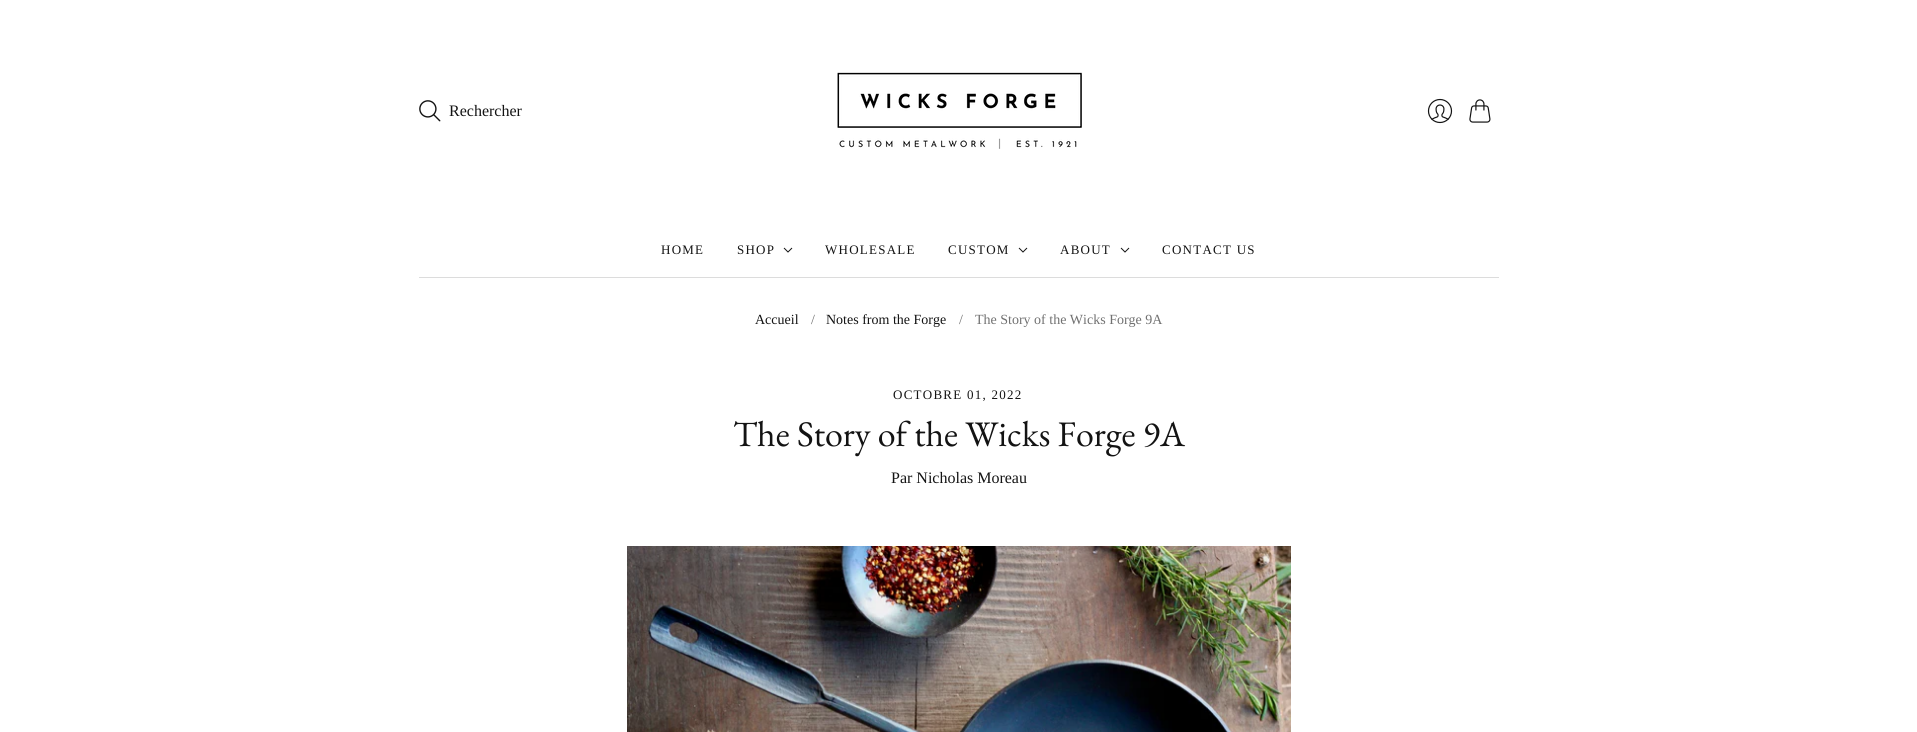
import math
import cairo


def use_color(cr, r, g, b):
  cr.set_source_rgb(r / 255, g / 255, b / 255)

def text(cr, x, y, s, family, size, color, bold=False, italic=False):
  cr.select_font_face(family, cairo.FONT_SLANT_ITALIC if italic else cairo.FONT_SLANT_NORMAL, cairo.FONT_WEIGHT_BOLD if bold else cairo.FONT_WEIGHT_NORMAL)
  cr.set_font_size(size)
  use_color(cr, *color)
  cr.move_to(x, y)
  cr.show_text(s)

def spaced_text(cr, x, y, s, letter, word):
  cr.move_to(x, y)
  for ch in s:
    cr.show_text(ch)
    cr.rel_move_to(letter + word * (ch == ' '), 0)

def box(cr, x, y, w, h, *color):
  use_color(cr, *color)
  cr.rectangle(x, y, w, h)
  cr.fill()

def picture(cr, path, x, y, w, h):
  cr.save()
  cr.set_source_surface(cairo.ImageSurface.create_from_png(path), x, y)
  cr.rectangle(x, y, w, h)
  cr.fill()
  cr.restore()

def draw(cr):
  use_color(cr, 255, 255, 255)
  cr.paint()
  picture(cr, "img_01.png", 419, 100, 22, 22)
  picture(cr, "img_02.png", 1427, 98, 26, 26)
  picture(cr, "img_03.png", 1469, 99, 22, 24)
  box(cr, 419, 277, 1080, 1, 220, 220, 220)
  picture(cr, "img_04.png", 837, 72, 245, 77)
  cr.new_path()
  cr.move_to(784, 248)
  cr.line_to(788, 252)
  cr.line_to(792, 248)
  use_color(cr, 19, 19, 19)
  cr.set_line_width(1)
  cr.stroke()
  cr.new_path()
  cr.move_to(1019, 248)
  cr.line_to(1023, 252)
  cr.line_to(1027, 248)
  cr.stroke()
  cr.new_path()
  cr.move_to(1121, 248)
  cr.line_to(1125, 252)
  cr.line_to(1129, 248)
  cr.stroke()
  picture(cr, "img_05.png", 627, 546, 664, 186)
  text(cr, 449, 116, "Rechercher", "Liberation Serif", 16, (19, 19, 19))
  cr.set_font_size(13)
  spaced_text(cr, 661, 254, "HOME", 1.25, 0)
  spaced_text(cr, 737, 254, "SHOP", 1.25, 0)
  spaced_text(cr, 825, 254, "WHOLESALE", 1.25, 0)
  spaced_text(cr, 948, 254, "CUSTOM", 1.25, 0)
  spaced_text(cr, 1060, 254, "ABOUT", 1.25, 0)
  spaced_text(cr, 1162, 254, "CONTACT US", 1.25, 0)
  text(cr, 755, 324, "Accueil", "Liberation Serif", 14, (19, 19, 19))
  text(cr, 811, 324, "/", "Liberation Serif", 14, (113, 113, 113))
  text(cr, 826, 324, "Notes from the Forge", "Liberation Serif", 14, (19, 19, 19))
  text(cr, 959, 324, "/", "Liberation Serif", 14, (113, 113, 113))
  text(cr, 975, 324, "The Story of the Wicks Forge 9A", "Liberation Serif", 14, (113, 113, 113))
  cr.set_font_size(13)
  use_color(cr, 19, 19, 19)
  spaced_text(cr, 893, 399, "OCTOBRE 01, 2022", 1.25, 0)
  text(cr, 733, 446, "The Story of the Wicks Forge 9A", "EB Garamond", 36, (19, 19, 19))
  text(cr, 891, 483, "Par Nicholas Moreau", "Liberation Serif", 16, (19, 19, 19))


surface = cairo.ImageSurface(cairo.FORMAT_RGB24, 1917, 732)
cr = cairo.Context(surface)
options = cairo.FontOptions()
options.set_hint_metrics(cairo.HINT_METRICS_OFF)
options.set_hint_style(cairo.HINT_STYLE_NONE)
cr.set_font_options(options)
cr.set_miter_limit(4)
draw(cr)
surface.write_to_png("out.png")
